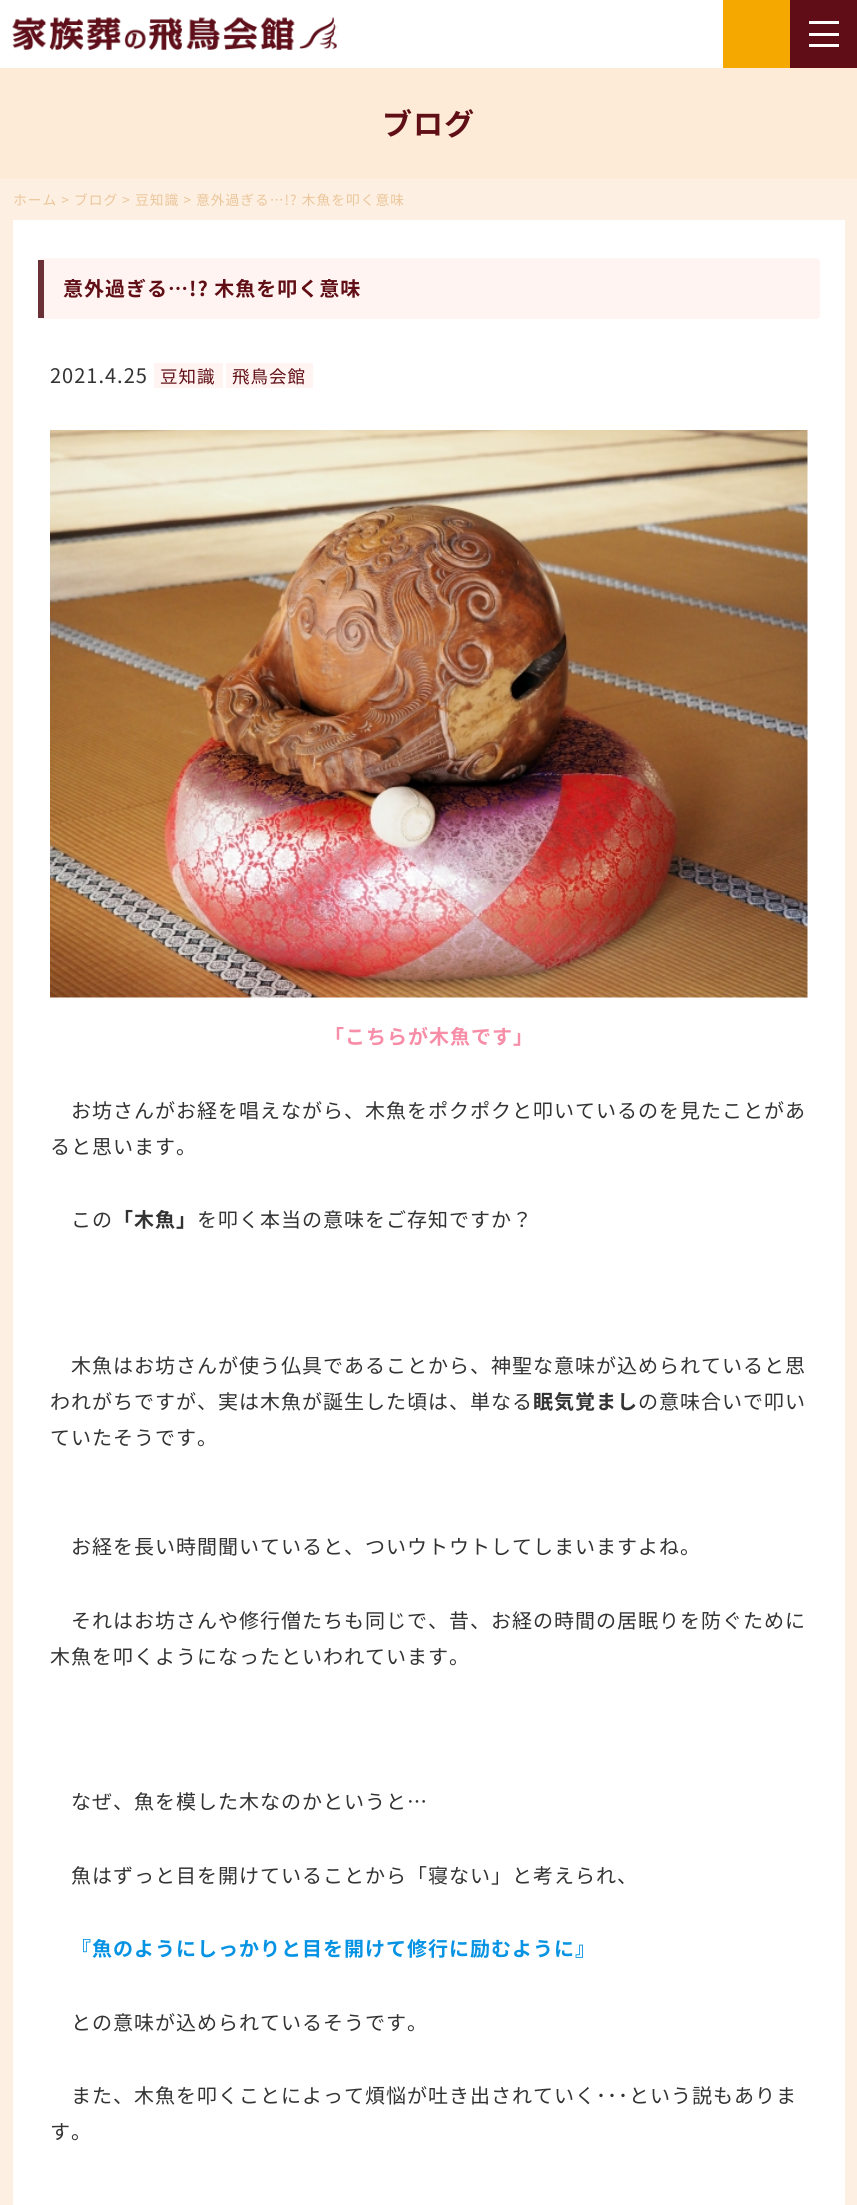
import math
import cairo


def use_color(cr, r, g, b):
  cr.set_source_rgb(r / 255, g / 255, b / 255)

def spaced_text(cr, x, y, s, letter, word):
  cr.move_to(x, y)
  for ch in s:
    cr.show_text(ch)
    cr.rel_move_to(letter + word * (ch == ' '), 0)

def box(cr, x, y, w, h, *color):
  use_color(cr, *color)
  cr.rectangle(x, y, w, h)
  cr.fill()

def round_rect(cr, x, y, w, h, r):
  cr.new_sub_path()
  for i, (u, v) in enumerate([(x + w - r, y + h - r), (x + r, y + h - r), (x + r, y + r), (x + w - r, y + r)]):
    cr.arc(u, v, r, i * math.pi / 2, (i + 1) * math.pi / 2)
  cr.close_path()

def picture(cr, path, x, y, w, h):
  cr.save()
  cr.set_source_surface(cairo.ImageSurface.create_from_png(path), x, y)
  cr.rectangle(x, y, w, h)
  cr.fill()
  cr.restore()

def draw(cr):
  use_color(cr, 255, 255, 255)
  cr.paint()
  picture(cr, "img_01.png", 12, 17, 326, 33)
  box(cr, 723, 0, 67, 68, 245, 168, 0)
  box(cr, 790, 0, 67, 68, 96, 13, 24)
  box(cr, 809, 21, 30, 3, 255, 255, 255)
  box(cr, 809, 33, 30, 3, 255, 255, 255)
  box(cr, 809, 44, 30, 3, 255, 255, 255)
  box(cr, 0, 179, 857, 2026, 253, 240, 226)
  box(cr, 0, 68, 857, 111, 253, 235, 215)
  box(cr, 13, 220, 832, 1985, 255, 255, 255)
  use_color(cr, 255, 244, 241)
  round_rect(cr, 38, 258, 782, 61, 4)
  cr.fill()
  box(cr, 38, 260, 6, 58, 107, 48, 53)
  box(cr, 154, 363, 69, 25, 255, 244, 241)
  box(cr, 226, 363, 87, 25, 255, 244, 241)
  picture(cr, "img_02.png", 50, 430, 758, 568)
  cr.select_font_face("Noto Sans JP", cairo.FONT_SLANT_NORMAL, cairo.FONT_WEIGHT_BOLD)
  cr.set_font_size(30)
  use_color(cr, 97, 15, 22)
  spaced_text(cr, 382, 135, "ブログ", 1, 0)
  cr.select_font_face("Noto Sans JP")
  cr.set_font_size(13.75)
  use_color(cr, 235, 197, 154)
  spaced_text(cr, 13, 205, "ホーム > ブログ > 豆知識 > 意外過ぎる…!? 木魚を叩く意味", 1, 0)
  cr.select_font_face("Noto Sans JP", cairo.FONT_SLANT_NORMAL, cairo.FONT_WEIGHT_BOLD)
  cr.set_font_size(20)
  use_color(cr, 97, 15, 22)
  spaced_text(cr, 63, 296, "意外過ぎる…!? 木魚を叩く意味", 1, 0)
  cr.select_font_face("Noto Sans JP")
  use_color(cr, 51, 51, 51)
  spaced_text(cr, 50, 383, "2021.4.25", 1, 0)
  cr.set_font_size(17.5)
  use_color(cr, 97, 15, 22)
  spaced_text(cr, 160, 383, "豆知識", 1, 0)
  spaced_text(cr, 232, 383, "飛鳥会館", 1, 0)
  cr.select_font_face("Noto Sans JP", cairo.FONT_SLANT_NORMAL, cairo.FONT_WEIGHT_BOLD)
  cr.set_font_size(20)
  use_color(cr, 247, 141, 167)
  spaced_text(cr, 324, 1044, "「こちらが木魚です」", 1, 0)
  cr.select_font_face("Noto Sans JP")
  use_color(cr, 51, 51, 51)
  spaced_text(cr, 71, 1118, "お坊さんがお経を唱えながら、木魚をポクポクと叩いているのを見たことがあ", 1, 0)
  spaced_text(cr, 50, 1154, "ると思います。", 1, 0)
  spaced_text(cr, 71, 1227, "この", 1, 0)
  cr.select_font_face("Noto Sans JP", cairo.FONT_SLANT_NORMAL, cairo.FONT_WEIGHT_BOLD)
  spaced_text(cr, 113, 1227, "「木魚」", 1, 0)
  cr.select_font_face("Noto Sans JP")
  spaced_text(cr, 197, 1227, "を叩く本当の意味をご存知ですか？", 1, 0)
  spaced_text(cr, 71, 1373, "木魚はお坊さんが使う仏具であることから、神聖な意味が込められていると思", 1, 0)
  spaced_text(cr, 50, 1409, "われがちですが、実は木魚が誕生した頃は、単なる", 1, 0)
  cr.select_font_face("Noto Sans JP", cairo.FONT_SLANT_NORMAL, cairo.FONT_WEIGHT_BOLD)
  spaced_text(cr, 533, 1409, "眠気覚まし", 1, 0)
  cr.select_font_face("Noto Sans JP")
  spaced_text(cr, 638, 1409, "の意味合いで叩い", 1, 0)
  spaced_text(cr, 50, 1445, "ていたそうです。", 1, 0)
  spaced_text(cr, 71, 1554, "お経を長い時間聞いていると、ついウトウトしてしまいますよね。", 1, 0)
  spaced_text(cr, 71, 1628, "それはお坊さんや修行僧たちも同じで、昔、お経の時間の居眠りを防ぐために", 1, 0)
  spaced_text(cr, 50, 1664, "木魚を叩くようになったといわれています。", 1, 0)
  spaced_text(cr, 71, 1809, "なぜ、魚を模した木なのかというと…", 1, 0)
  spaced_text(cr, 71, 1883, "魚はずっと目を開けていることから「寝ない」と考えられ、", 1, 0)
  cr.select_font_face("Noto Sans JP", cairo.FONT_SLANT_NORMAL, cairo.FONT_WEIGHT_BOLD)
  use_color(cr, 6, 147, 227)
  spaced_text(cr, 71, 1956, "『魚のようにしっかりと目を開けて修行に励むように』", 1, 0)
  cr.select_font_face("Noto Sans JP")
  use_color(cr, 51, 51, 51)
  spaced_text(cr, 71, 2030, "との意味が込められているそうです。", 1, 0)
  spaced_text(cr, 71, 2103, "また、木魚を叩くことによって煩悩が吐き出されていく･･･という説もありま", 1, 0)
  spaced_text(cr, 50, 2139, "す。", 1, 0)


surface = cairo.ImageSurface(cairo.FORMAT_RGB24, 857, 2205)
cr = cairo.Context(surface)
options = cairo.FontOptions()
options.set_hint_metrics(cairo.HINT_METRICS_OFF)
options.set_hint_style(cairo.HINT_STYLE_NONE)
cr.set_font_options(options)
cr.set_miter_limit(4)
draw(cr)
surface.write_to_png("out.png")
